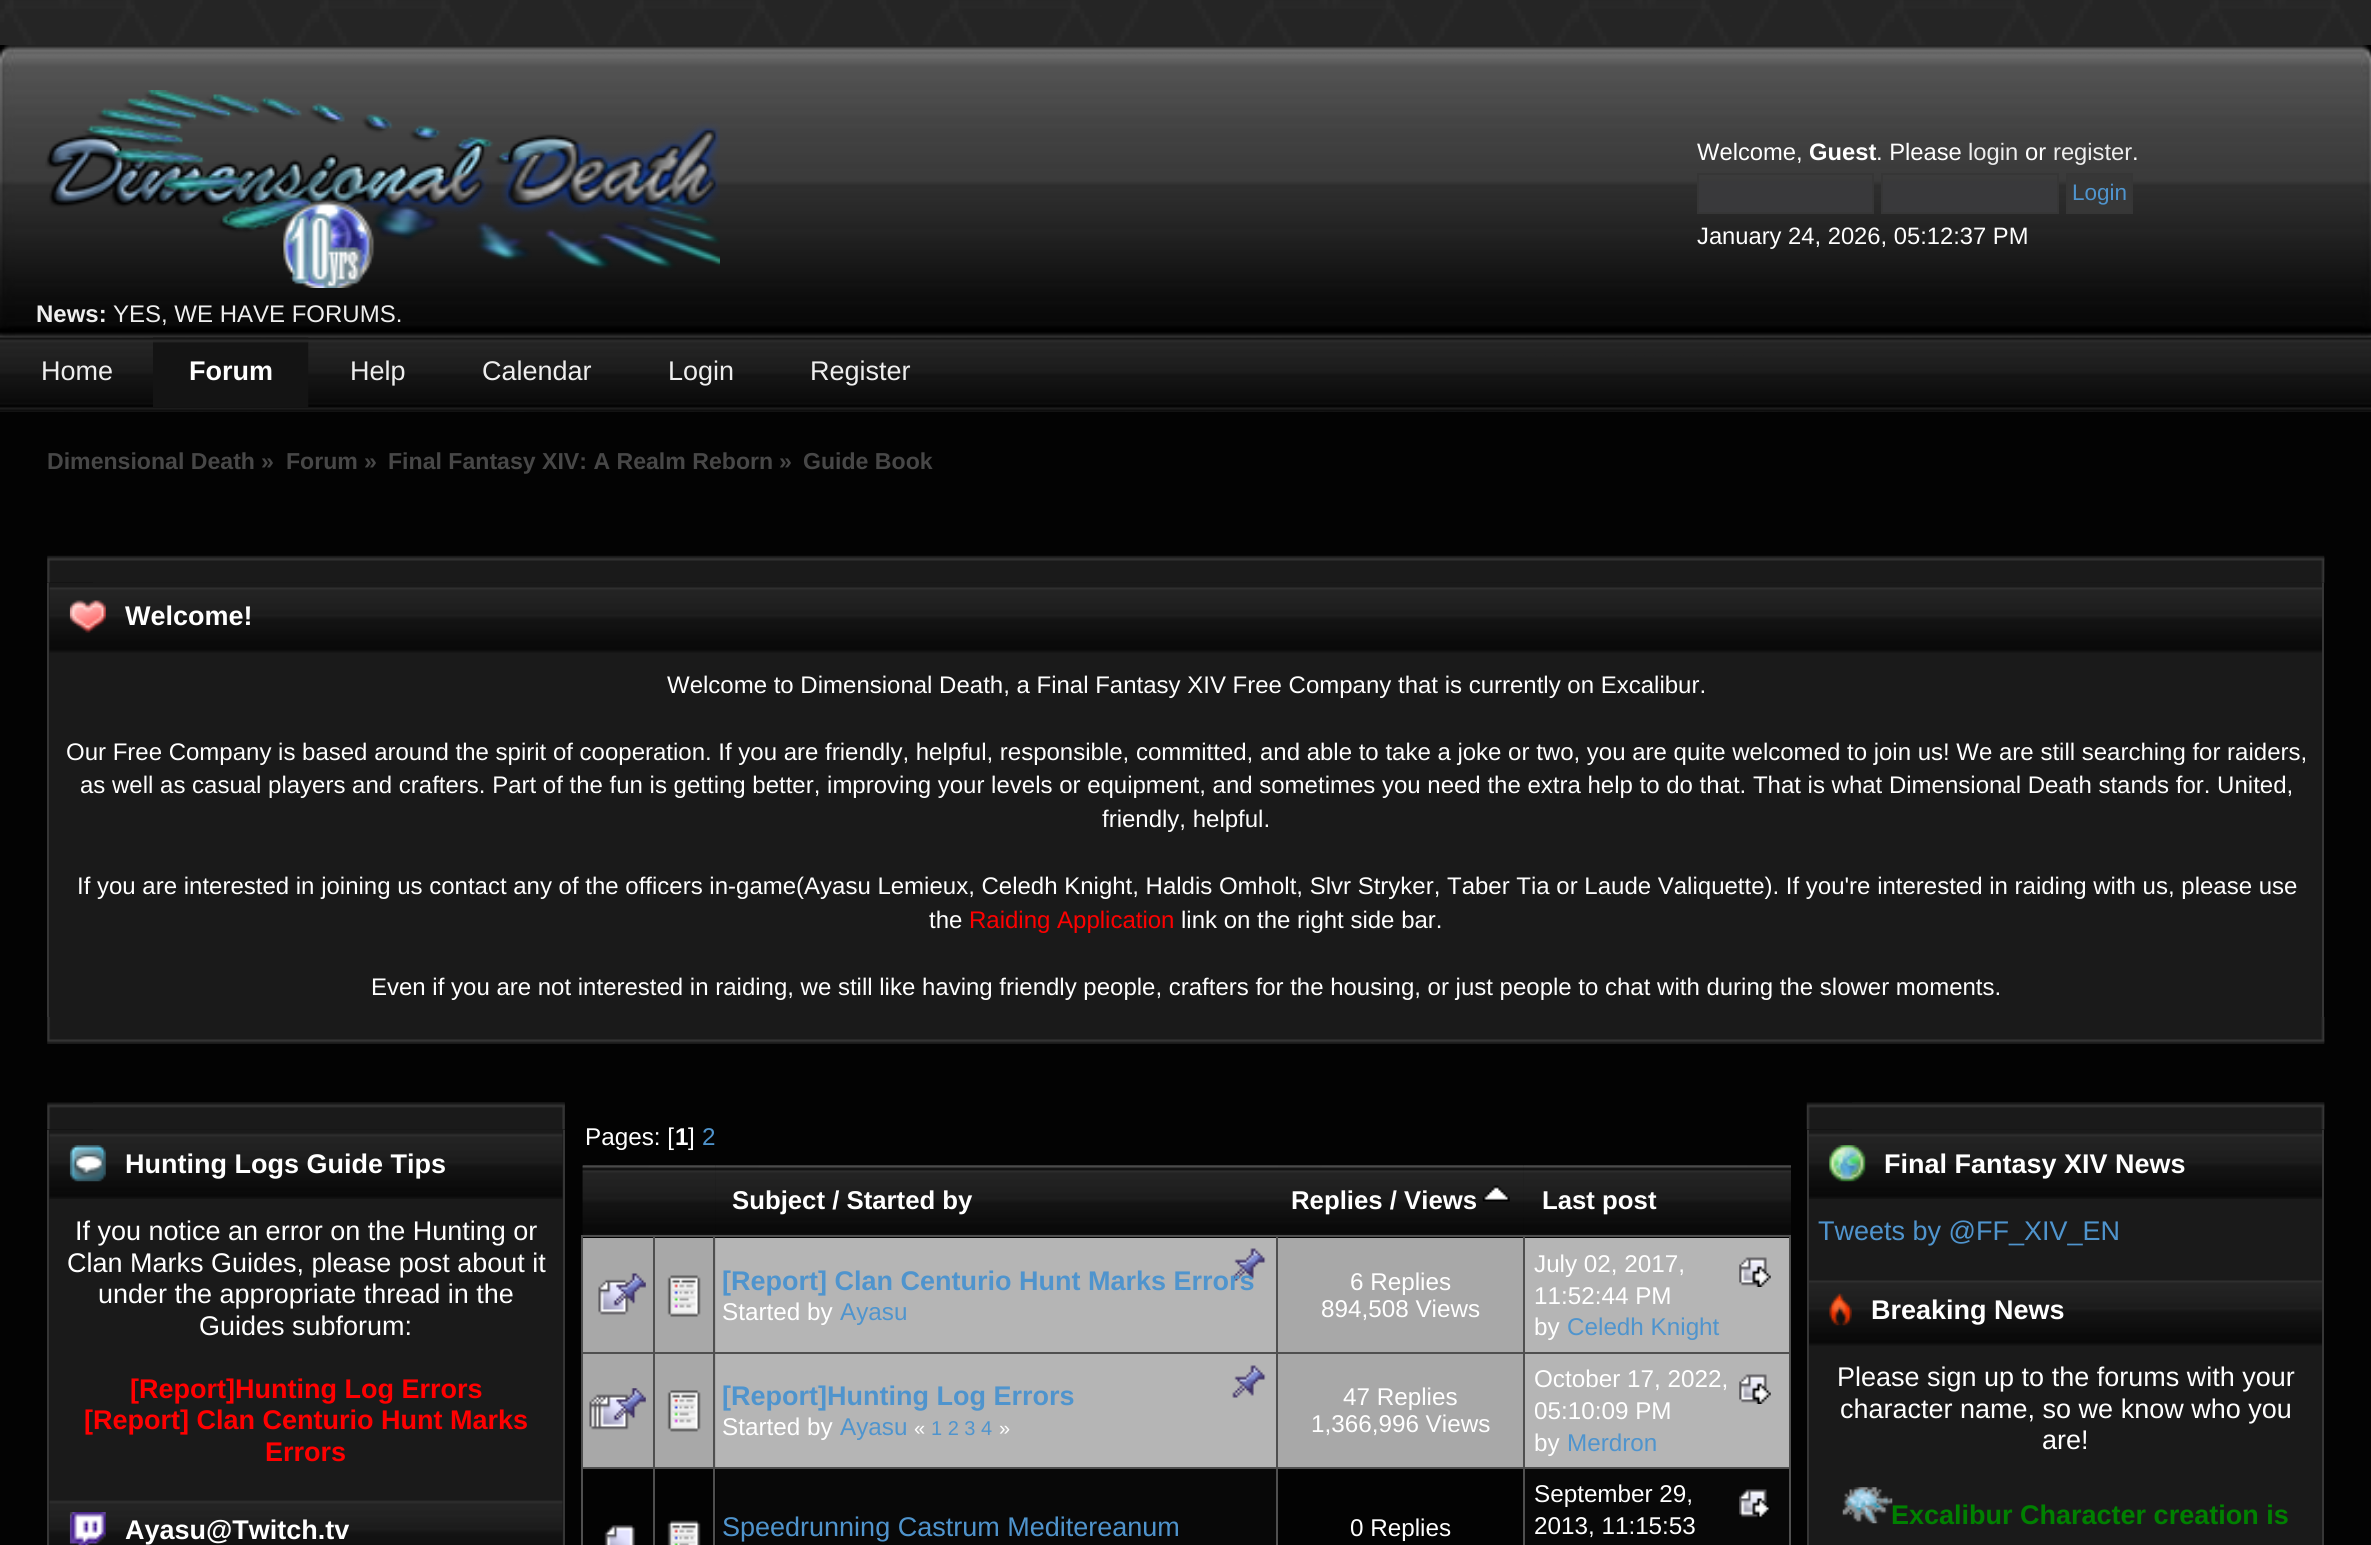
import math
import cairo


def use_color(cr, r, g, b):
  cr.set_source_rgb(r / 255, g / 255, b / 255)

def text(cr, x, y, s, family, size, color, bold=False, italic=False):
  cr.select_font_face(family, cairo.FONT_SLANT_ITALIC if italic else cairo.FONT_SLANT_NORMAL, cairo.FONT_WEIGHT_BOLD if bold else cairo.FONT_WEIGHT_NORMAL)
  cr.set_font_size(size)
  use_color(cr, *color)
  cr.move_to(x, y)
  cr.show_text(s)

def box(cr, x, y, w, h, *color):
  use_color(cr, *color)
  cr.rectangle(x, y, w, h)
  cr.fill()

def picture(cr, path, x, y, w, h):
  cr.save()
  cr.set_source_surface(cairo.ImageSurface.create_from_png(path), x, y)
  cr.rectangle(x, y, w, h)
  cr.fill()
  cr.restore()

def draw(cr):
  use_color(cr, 255, 255, 255)
  cr.paint()
  picture(cr, "img_01.png", 0, 0, 2371, 412)
  picture(cr, "img_06.png", 0, 337, 2371, 75)
  picture(cr, "img_02.png", 0, 45, 2371, 293)
  picture(cr, "img_03.png", 0, 45, 15, 292)
  picture(cr, "img_04.png", 2361, 45, 10, 292)
  picture(cr, "img_05.png", 45, 90, 675, 198)
  box(cr, 1699, 181, 173, 31, 57, 57, 59)
  cr.rectangle(1698, 174, 175, 39)
  use_color(cr, 54, 54, 54)
  cr.stroke()
  box(cr, 1883, 181, 174, 31, 57, 57, 59)
  cr.rectangle(1882, 174, 176, 39)
  use_color(cr, 54, 54, 54)
  cr.stroke()
  use_color(cr, 55, 55, 55)
  cr.rectangle(2067, 174, 65, 39)
  cr.fill_preserve()
  use_color(cr, 54, 54, 54)
  cr.stroke()
  picture(cr, "img_07.png", 153, 337, 156, 70)
  box(cr, 0, 412, 2371, 1133, 3, 3, 3)
  picture(cr, "img_08.png", 47, 555, 2278, 28)
  picture(cr, "img_09.png", 93, 557, 2232, 26)
  box(cr, 49, 583, 2273, 434, 26, 26, 26)
  box(cr, 2322, 583, 2, 434, 54, 54, 54)
  box(cr, 47, 583, 2, 434, 54, 54, 54)
  picture(cr, "img_10.png", 49, 587, 2273, 66)
  picture(cr, "img_11.png", 69, 600, 37, 33)
  picture(cr, "img_12.png", 47, 1017, 2278, 27)
  picture(cr, "img_13.png", 2321, 1017, 4, 26)
  picture(cr, "img_14.png", 47, 1102, 518, 28)
  picture(cr, "img_15.png", 93, 1102, 472, 28)
  box(cr, 49, 1130, 514, 415, 26, 26, 26)
  box(cr, 563, 1130, 2, 415, 54, 54, 54)
  box(cr, 47, 1130, 2, 415, 54, 54, 54)
  picture(cr, "img_16.png", 49, 1129, 514, 70)
  picture(cr, "img_17.png", 69, 1145, 37, 37)
  picture(cr, "img_18.png", 49, 1500, 514, 45)
  picture(cr, "img_19.png", 69, 1512, 37, 33)
  picture(cr, "img_20.png", 582, 1165, 134, 70)
  picture(cr, "img_21.png", 715, 1165, 563, 70)
  picture(cr, "img_22.png", 1278, 1165, 246, 70)
  picture(cr, "img_23.png", 1482, 1185, 28, 17)
  picture(cr, "img_24.png", 1523, 1165, 268, 70)
  box(cr, 583, 1238, 70, 114, 168, 168, 168)
  box(cr, 1523, 1235, 268, 2, 79, 79, 79)
  box(cr, 1523, 1352, 268, 2, 79, 79, 79)
  box(cr, 1523, 1467, 268, 2, 79, 79, 79)
  box(cr, 1523, 1467, 2, 78, 79, 79, 79)
  box(cr, 1276, 1467, 250, 2, 79, 79, 79)
  box(cr, 1523, 1352, 2, 117, 79, 79, 79)
  box(cr, 1276, 1352, 250, 2, 79, 79, 79)
  box(cr, 1523, 1235, 2, 120, 79, 79, 79)
  box(cr, 1276, 1235, 250, 2, 79, 79, 79)
  box(cr, 1276, 1467, 2, 78, 79, 79, 79)
  box(cr, 713, 1467, 565, 2, 79, 79, 79)
  box(cr, 1276, 1352, 2, 117, 79, 79, 79)
  box(cr, 713, 1352, 565, 2, 79, 79, 79)
  box(cr, 1276, 1235, 2, 120, 79, 79, 79)
  box(cr, 713, 1235, 565, 2, 79, 79, 79)
  box(cr, 655, 1238, 61, 114, 168, 168, 168)
  box(cr, 655, 1354, 61, 113, 168, 168, 168)
  box(cr, 713, 1467, 2, 78, 79, 79, 79)
  box(cr, 653, 1467, 63, 2, 79, 79, 79)
  box(cr, 713, 1352, 2, 117, 79, 79, 79)
  box(cr, 653, 1352, 63, 2, 79, 79, 79)
  box(cr, 713, 1235, 2, 120, 79, 79, 79)
  box(cr, 653, 1235, 63, 2, 79, 79, 79)
  box(cr, 653, 1467, 2, 78, 79, 79, 79)
  box(cr, 581, 1467, 74, 2, 79, 79, 79)
  box(cr, 653, 1352, 2, 117, 79, 79, 79)
  box(cr, 581, 1352, 74, 2, 79, 79, 79)
  box(cr, 653, 1235, 2, 120, 79, 79, 79)
  box(cr, 581, 1235, 74, 2, 79, 79, 79)
  box(cr, 581, 1467, 2, 78, 79, 79, 79)
  box(cr, 581, 1352, 2, 117, 79, 79, 79)
  box(cr, 581, 1235, 2, 120, 79, 79, 79)
  picture(cr, "img_25.png", 598, 1273, 48, 42)
  picture(cr, "img_26.png", 667, 1275, 34, 42)
  box(cr, 716, 1238, 560, 114, 181, 181, 181)
  picture(cr, "img_27.png", 1232, 1248, 34, 33)
  box(cr, 1278, 1238, 245, 114, 168, 168, 168)
  box(cr, 1525, 1238, 264, 114, 181, 181, 181)
  box(cr, 1789, 1467, 2, 78, 79, 79, 79)
  box(cr, 1789, 1352, 2, 117, 79, 79, 79)
  box(cr, 1789, 1235, 2, 120, 79, 79, 79)
  picture(cr, "img_28.png", 1739, 1257, 32, 30)
  box(cr, 583, 1354, 70, 113, 168, 168, 168)
  picture(cr, "img_29.png", 589, 1388, 57, 42)
  picture(cr, "img_30.png", 667, 1390, 34, 42)
  box(cr, 716, 1354, 560, 113, 181, 181, 181)
  picture(cr, "img_27.png", 1232, 1365, 34, 33)
  box(cr, 1278, 1354, 245, 113, 168, 168, 168)
  box(cr, 1525, 1354, 264, 113, 181, 181, 181)
  picture(cr, "img_28.png", 1739, 1374, 32, 30)
  picture(cr, "img_31.png", 604, 1525, 32, 20)
  picture(cr, "img_32.png", 667, 1520, 34, 25)
  box(cr, 716, 1469, 560, 76, 8, 8, 8)
  box(cr, 1525, 1469, 264, 76, 8, 8, 8)
  picture(cr, "img_33.png", 1739, 1489, 32, 30)
  picture(cr, "img_34.png", 1806, 1102, 519, 28)
  picture(cr, "img_35.png", 1852, 1102, 473, 28)
  box(cr, 1809, 1199, 513, 346, 26, 26, 26)
  box(cr, 2322, 1130, 2, 415, 54, 54, 54)
  box(cr, 1807, 1130, 2, 415, 54, 54, 54)
  picture(cr, "img_36.png", 1809, 1129, 513, 70)
  picture(cr, "img_37.png", 1829, 1145, 37, 37)
  picture(cr, "img_38.png", 1809, 1280, 513, 66)
  picture(cr, "img_39.png", 1829, 1293, 23, 33)
  picture(cr, "img_40.png", 1842, 1487, 51, 37)
  text(cr, 1697, 160, "Welcome,", "Liberation Sans", 23.75, (255, 255, 255))
  text(cr, 1809, 160, "Guest", "Liberation Sans", 23.75, (255, 255, 255), bold=True)
  text(cr, 1876, 160, ". Please", "Liberation Sans", 23.75, (255, 255, 255))
  text(cr, 1968, 160, "login", "Liberation Sans", 23.75, (238, 238, 238))
  text(cr, 2025, 160, "or", "Liberation Sans", 23.75, (255, 255, 255))
  text(cr, 2053, 160, "register", "Liberation Sans", 23.75, (238, 238, 238))
  text(cr, 2132, 160, ".", "Liberation Sans", 23.75, (255, 255, 255))
  text(cr, 2072, 200, "Login", "Liberation Sans", 22.5, (79, 148, 205))
  text(cr, 1697, 244, "January 24, 2026, 05:12:37 PM", "Liberation Sans", 23.75, (255, 255, 255))
  text(cr, 36, 322, "News:", "Liberation Sans", 24, (238, 238, 238), bold=True)
  text(cr, 113, 322, "YES, WE HAVE FORUMS.", "Liberation Sans", 24, (238, 238, 238))
  text(cr, 41, 380, "Home", "Liberation Sans", 27, (238, 238, 238))
  text(cr, 189, 380, "Forum", "Liberation Sans", 27, (255, 255, 255), bold=True)
  text(cr, 350, 380, "Help", "Liberation Sans", 27, (238, 238, 238))
  text(cr, 482, 380, "Calendar", "Liberation Sans", 27, (238, 238, 238))
  text(cr, 668, 380, "Login", "Liberation Sans", 27, (238, 238, 238))
  text(cr, 810, 380, "Register", "Liberation Sans", 27, (238, 238, 238))
  text(cr, 47, 469, "Dimensional Death", "Liberation Sans", 23.1, (71, 71, 71), bold=True)
  text(cr, 261, 469, "»", "Liberation Sans", 23.1, (71, 71, 71), bold=True)
  text(cr, 286, 469, "Forum", "Liberation Sans", 23.1, (71, 71, 71), bold=True)
  text(cr, 364, 469, "»", "Liberation Sans", 23.1, (71, 71, 71), bold=True)
  text(cr, 388, 469, "Final Fantasy XIV: A Realm Reborn", "Liberation Sans", 23.1, (71, 71, 71), bold=True)
  text(cr, 779, 469, "»", "Liberation Sans", 23.1, (71, 71, 71), bold=True)
  text(cr, 803, 469, "Guide Book", "Liberation Sans", 23.1, (71, 71, 71), bold=True)
  text(cr, 125, 625, "Welcome!", "Liberation Sans", 27, (255, 255, 255), bold=True)
  text(cr, 667, 693, "Welcome to Dimensional Death, a Final Fantasy XIV Free Company that is currently on Excalibur.", "Liberation Sans", 24, (255, 255, 255))
  text(cr, 66, 760, "Our Free Company is based around the spirit of cooperation. If you are friendly, helpful, responsible, committed, and able to take a joke or two, you are quite welcomed to join us! We are still searching for raiders,", "Liberation Sans", 24, (255, 255, 255))
  text(cr, 80, 793, "as well as casual players and crafters. Part of the fun is getting better, improving your levels or equipment, and sometimes you need the extra help to do that. That is what Dimensional Death stands for. United,", "Liberation Sans", 24, (255, 255, 255))
  text(cr, 1102, 827, "friendly, helpful.", "Liberation Sans", 24, (255, 255, 255))
  text(cr, 77, 894, "If you are interested in joining us contact any of the officers in-game(Ayasu Lemieux, Celedh Knight, Haldis Omholt, Slvr Stryker, Taber Tia or Laude Valiquette). If you're interested in raiding with us, please use", "Liberation Sans", 24, (255, 255, 255))
  text(cr, 929, 928, "the", "Liberation Sans", 24, (255, 255, 255))
  text(cr, 969, 928, "Raiding Application", "Liberation Sans", 24, (255, 0, 0))
  text(cr, 1181, 928, "link on the right side bar.", "Liberation Sans", 24, (255, 255, 255))
  text(cr, 371, 995, "Even if you are not interested in raiding, we still like having friendly people, crafters for the housing, or just people to chat with during the slower moments.", "Liberation Sans", 24, (255, 255, 255))
  text(cr, 125, 1173, "Hunting Logs Guide Tips", "Liberation Sans", 27, (255, 255, 255), bold=True)
  text(cr, 75, 1240, "If you notice an error on the Hunting or", "Liberation Sans", 27, (255, 255, 255))
  text(cr, 67, 1272, "Clan Marks Guides, please post about it", "Liberation Sans", 27, (255, 255, 255))
  text(cr, 98, 1303, "under the appropriate thread in the", "Liberation Sans", 27, (255, 255, 255))
  text(cr, 199, 1335, "Guides subforum:", "Liberation Sans", 27, (255, 255, 255))
  text(cr, 130, 1398, "[Report]Hunting Log Errors", "Liberation Sans", 27, (255, 0, 0), bold=True)
  text(cr, 84, 1429, "[Report] Clan Centurio Hunt Marks", "Liberation Sans", 27, (255, 0, 0), bold=True)
  text(cr, 265, 1461, "Errors", "Liberation Sans", 27, (255, 0, 0), bold=True)
  text(cr, 125, 1539, "Ayasu@Twitch.tv", "Liberation Sans", 27, (255, 255, 255), bold=True)
  text(cr, 585, 1145, "Pages: [", "Liberation Sans", 24.25, (255, 255, 255))
  text(cr, 675, 1145, "1", "Liberation Sans", 24.25, (255, 255, 255), bold=True)
  text(cr, 688, 1145, "]", "Liberation Sans", 24.25, (255, 255, 255))
  text(cr, 702, 1145, "2", "Liberation Sans", 24.25, (79, 148, 205))
  text(cr, 732, 1209, "Subject / Started by", "Liberation Sans", 25.75, (255, 255, 255), bold=True)
  text(cr, 1291, 1209, "Replies / Views", "Liberation Sans", 25.75, (255, 255, 255), bold=True)
  text(cr, 1542, 1209, "Last post", "Liberation Sans", 25.75, (255, 255, 255), bold=True)
  text(cr, 722, 1290, "[Report] Clan Centurio Hunt Marks Errors", "Liberation Sans", 27, (79, 148, 205), bold=True)
  text(cr, 722, 1320, "Started by", "Liberation Sans", 24.25, (255, 255, 255))
  text(cr, 840, 1320, "Ayasu", "Liberation Sans", 24.25, (79, 148, 205))
  text(cr, 1350, 1290, "6 Replies", "Liberation Sans", 24.25, (255, 255, 255))
  text(cr, 1321, 1317, "894,508 Views", "Liberation Sans", 24.25, (255, 255, 255))
  text(cr, 1534, 1272, "July 02, 2017,", "Liberation Sans", 24.25, (255, 255, 255))
  text(cr, 1534, 1304, "11:52:44 PM", "Liberation Sans", 24.25, (255, 255, 255))
  text(cr, 1534, 1335, "by", "Liberation Sans", 24.25, (255, 255, 255))
  text(cr, 1567, 1335, "Celedh Knight", "Liberation Sans", 24.25, (79, 148, 205))
  text(cr, 722, 1405, "[Report]Hunting Log Errors", "Liberation Sans", 27, (79, 148, 205), bold=True)
  text(cr, 722, 1435, "Started by", "Liberation Sans", 24.25, (255, 255, 255))
  text(cr, 840, 1435, "Ayasu", "Liberation Sans", 24.25, (79, 148, 205))
  text(cr, 914, 1435, "«", "Liberation Sans", 20, (255, 255, 255))
  text(cr, 931, 1435, "1 2 3 4", "Liberation Sans", 20, (79, 148, 205))
  text(cr, 999, 1435, "»", "Liberation Sans", 20, (255, 255, 255))
  text(cr, 1343, 1405, "47 Replies", "Liberation Sans", 24.25, (255, 255, 255))
  text(cr, 1311, 1432, "1,366,996 Views", "Liberation Sans", 24.25, (255, 255, 255))
  text(cr, 1534, 1387, "October 17, 2022,", "Liberation Sans", 24.25, (255, 255, 255))
  text(cr, 1534, 1419, "05:10:09 PM", "Liberation Sans", 24.25, (255, 255, 255))
  text(cr, 1534, 1451, "by", "Liberation Sans", 24.25, (255, 255, 255))
  text(cr, 1567, 1451, "Merdron", "Liberation Sans", 24.25, (79, 148, 205))
  text(cr, 722, 1536, "Speedrunning Castrum Meditereanum", "Liberation Sans", 27, (79, 148, 205))
  text(cr, 1350, 1536, "0 Replies", "Liberation Sans", 24.25, (255, 255, 255))
  text(cr, 1534, 1502, "September 29,", "Liberation Sans", 24.25, (255, 255, 255))
  text(cr, 1534, 1534, "2013, 11:15:53", "Liberation Sans", 24.25, (255, 255, 255))
  text(cr, 1884, 1173, "Final Fantasy XIV News", "Liberation Sans", 27, (255, 255, 255), bold=True)
  text(cr, 1818, 1240, "Tweets by @FF_XIV_EN", "Liberation Sans", 27, (79, 148, 205))
  text(cr, 1871, 1319, "Breaking News", "Liberation Sans", 27, (255, 255, 255), bold=True)
  text(cr, 1837, 1386, "Please sign up to the forums with your", "Liberation Sans", 27, (255, 255, 255))
  text(cr, 1840, 1418, "character name, so we know who you", "Liberation Sans", 27, (255, 255, 255))
  text(cr, 2042, 1449, "are!", "Liberation Sans", 27, (255, 255, 255))
  text(cr, 1891, 1524, "Excalibur Character creation is", "Liberation Sans", 27, (0, 128, 0), bold=True)


surface = cairo.ImageSurface(cairo.FORMAT_RGB24, 2371, 1545)
cr = cairo.Context(surface)
options = cairo.FontOptions()
options.set_hint_metrics(cairo.HINT_METRICS_OFF)
options.set_hint_style(cairo.HINT_STYLE_NONE)
cr.set_font_options(options)
cr.set_miter_limit(4)
draw(cr)
surface.write_to_png("out.png")
